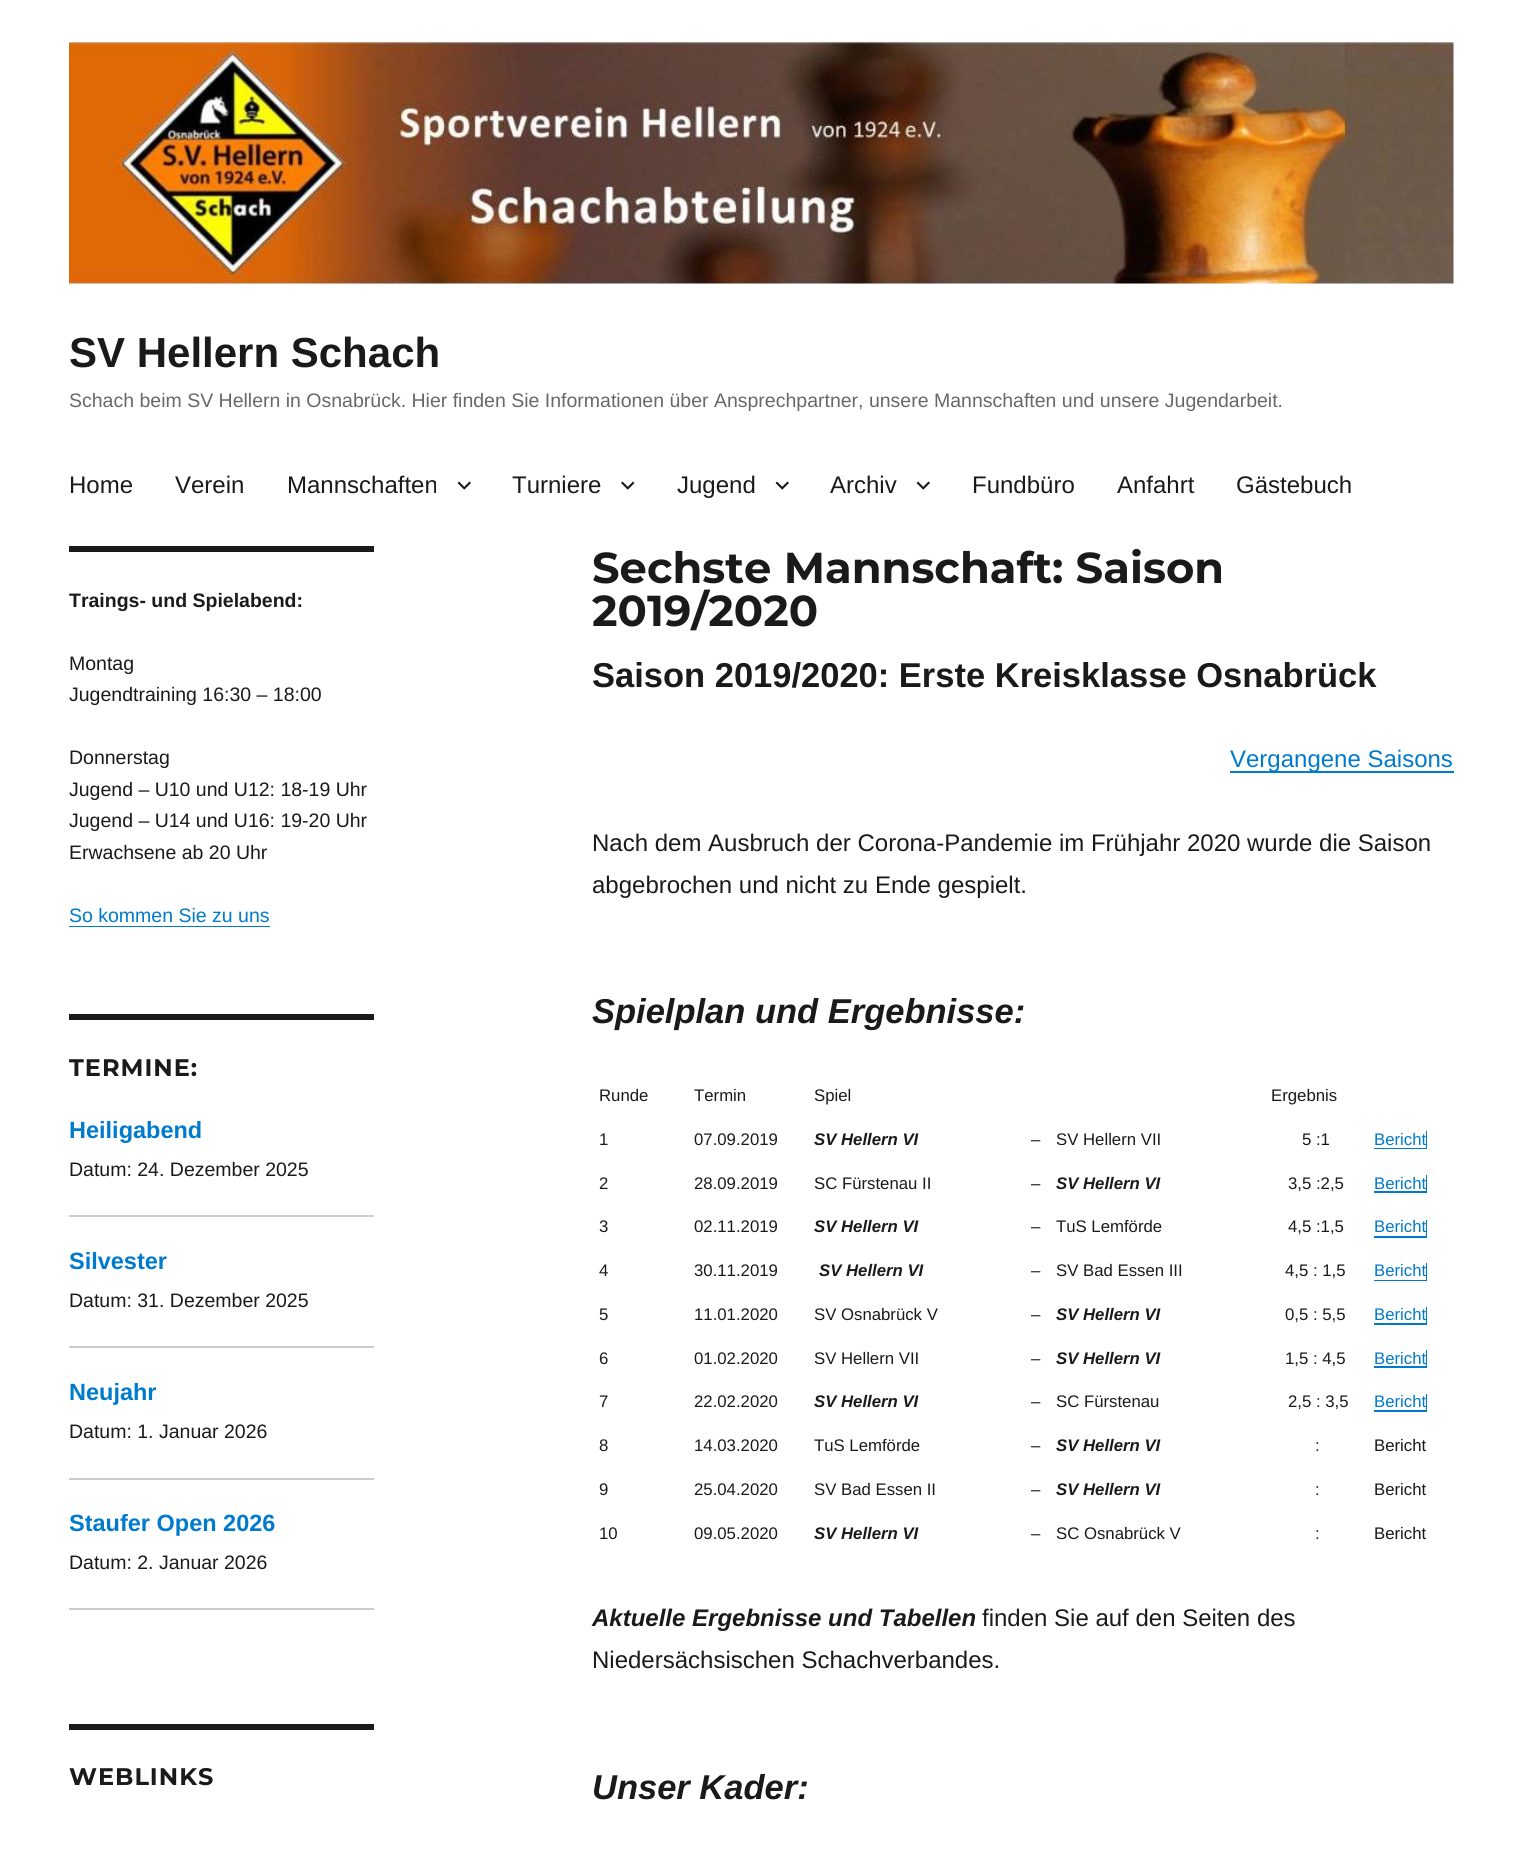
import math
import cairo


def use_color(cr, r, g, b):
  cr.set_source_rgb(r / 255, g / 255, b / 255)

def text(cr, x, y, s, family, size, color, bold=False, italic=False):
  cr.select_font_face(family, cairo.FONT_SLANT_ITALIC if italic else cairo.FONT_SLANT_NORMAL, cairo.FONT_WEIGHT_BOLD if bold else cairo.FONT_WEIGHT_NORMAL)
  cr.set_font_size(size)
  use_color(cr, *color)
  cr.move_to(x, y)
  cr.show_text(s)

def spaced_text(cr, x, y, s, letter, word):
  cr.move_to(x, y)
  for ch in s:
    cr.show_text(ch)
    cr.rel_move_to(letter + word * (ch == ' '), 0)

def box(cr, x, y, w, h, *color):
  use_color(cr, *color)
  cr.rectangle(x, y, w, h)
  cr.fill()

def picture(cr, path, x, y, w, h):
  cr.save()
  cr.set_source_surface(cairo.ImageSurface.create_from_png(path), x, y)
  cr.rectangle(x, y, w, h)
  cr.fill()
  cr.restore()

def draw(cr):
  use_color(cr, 255, 255, 255)
  cr.paint()
  picture(cr, "img_01.png", 69, 42, 1385, 242)
  picture(cr, "img_02.png", 457, 481, 14, 9)
  picture(cr, "img_03.png", 621, 481, 14, 9)
  picture(cr, "img_02.png", 775, 481, 14, 9)
  picture(cr, "img_02.png", 916, 481, 14, 9)
  box(cr, 69, 546, 305, 6, 26, 26, 26)
  box(cr, 69, 926, 201, 1, 0, 122, 204)
  box(cr, 69, 1014, 305, 6, 26, 26, 26)
  box(cr, 69, 1215, 305, 2, 204, 204, 204)
  box(cr, 69, 1346, 305, 2, 204, 204, 204)
  box(cr, 69, 1478, 305, 2, 204, 204, 204)
  box(cr, 69, 1608, 305, 2, 204, 204, 204)
  box(cr, 69, 1724, 305, 6, 26, 26, 26)
  use_color(cr, 0, 122, 204)
  cr.new_path()
  cr.move_to(1230, 771)
  cr.line_to(1230, 773)
  cr.line_to(1454, 773)
  cr.line_to(1454, 747)
  cr.line_to(1454, 771)
  cr.close_path()
  cr.fill()
  cr.new_path()
  cr.move_to(1374, 1148)
  cr.line_to(1374, 1149)
  cr.line_to(1427, 1149)
  cr.line_to(1427, 1131)
  cr.line_to(1426, 1131)
  cr.line_to(1426, 1148)
  cr.close_path()
  cr.fill()
  cr.new_path()
  cr.move_to(1374, 1191)
  cr.line_to(1374, 1193)
  cr.line_to(1427, 1193)
  cr.line_to(1427, 1175)
  cr.line_to(1426, 1175)
  cr.line_to(1426, 1191)
  cr.close_path()
  cr.fill()
  cr.new_path()
  cr.move_to(1374, 1236)
  cr.line_to(1374, 1238)
  cr.line_to(1427, 1238)
  cr.line_to(1427, 1220)
  cr.line_to(1426, 1220)
  cr.line_to(1426, 1236)
  cr.close_path()
  cr.fill()
  cr.new_path()
  cr.move_to(1374, 1280)
  cr.line_to(1374, 1281)
  cr.line_to(1427, 1281)
  cr.line_to(1427, 1263)
  cr.line_to(1426, 1263)
  cr.line_to(1426, 1280)
  cr.close_path()
  cr.fill()
  cr.new_path()
  cr.move_to(1374, 1323)
  cr.line_to(1374, 1325)
  cr.line_to(1427, 1325)
  cr.line_to(1427, 1307)
  cr.line_to(1426, 1307)
  cr.line_to(1426, 1323)
  cr.close_path()
  cr.fill()
  cr.new_path()
  cr.move_to(1374, 1366)
  cr.line_to(1374, 1368)
  cr.line_to(1427, 1368)
  cr.line_to(1427, 1350)
  cr.line_to(1426, 1350)
  cr.line_to(1426, 1366)
  cr.close_path()
  cr.fill()
  cr.new_path()
  cr.move_to(1374, 1410)
  cr.line_to(1374, 1412)
  cr.line_to(1427, 1412)
  cr.line_to(1427, 1394)
  cr.line_to(1426, 1394)
  cr.line_to(1426, 1410)
  cr.close_path()
  cr.fill()
  text(cr, 69, 367, "SV Hellern Schach", "Liberation Sans", 42, (26, 26, 26), bold=True)
  text(cr, 69, 407, "Schach beim SV Hellern in Osnabrück. Hier finden Sie Informationen über Ansprechpartner, unsere Mannschaften und unsere Jugendarbeit.", "Liberation Sans", 19.5, (104, 104, 104))
  text(cr, 69, 493, "Home", "Liberation Sans", 24, (26, 26, 26))
  text(cr, 175, 493, "Verein", "Liberation Sans", 24, (26, 26, 26))
  text(cr, 287, 493, "Mannschaften", "Liberation Sans", 24, (26, 26, 26))
  text(cr, 512, 493, "Turniere", "Liberation Sans", 24, (26, 26, 26))
  text(cr, 677, 493, "Jugend", "Liberation Sans", 24, (26, 26, 26))
  text(cr, 830, 493, "Archiv", "Liberation Sans", 24, (26, 26, 26))
  text(cr, 972, 493, "Fundbüro", "Liberation Sans", 24, (26, 26, 26))
  text(cr, 1117, 493, "Anfahrt", "Liberation Sans", 24, (26, 26, 26))
  text(cr, 1236, 493, "Gästebuch", "Liberation Sans", 24, (26, 26, 26))
  text(cr, 69, 607, "Traings- und Spielabend:", "Liberation Sans", 19.5, (26, 26, 26), bold=True)
  text(cr, 69, 670, "Montag", "Liberation Sans", 19.5, (26, 26, 26))
  text(cr, 69, 701, "Jugendtraining 16:30 – 18:00", "Liberation Sans", 19.5, (26, 26, 26))
  text(cr, 69, 764, "Donnerstag", "Liberation Sans", 19.5, (26, 26, 26))
  text(cr, 69, 796, "Jugend – U10 und U12: 18-19 Uhr", "Liberation Sans", 19.5, (26, 26, 26))
  text(cr, 69, 827, "Jugend – U14 und U16: 19-20 Uhr", "Liberation Sans", 19.5, (26, 26, 26))
  text(cr, 69, 859, "Erwachsene ab 20 Uhr", "Liberation Sans", 19.5, (26, 26, 26))
  text(cr, 69, 922, "So kommen Sie zu uns", "Liberation Sans", 19.5, (0, 122, 204))
  cr.select_font_face("Montserrat Thin")
  cr.set_font_size(24)
  use_color(cr, 26, 26, 26)
  spaced_text(cr, 69, 1076, "TERMINE:", 1, 0)
  text(cr, 69, 1138, "Heiligabend", "Liberation Sans", 23.5, (0, 122, 204), bold=True)
  text(cr, 69, 1176, "Datum: 24. Dezember 2025", "Liberation Sans", 19.5, (26, 26, 26))
  text(cr, 69, 1269, "Silvester", "Liberation Sans", 23.5, (0, 122, 204), bold=True)
  text(cr, 69, 1307, "Datum: 31. Dezember 2025", "Liberation Sans", 19.5, (26, 26, 26))
  text(cr, 69, 1400, "Neujahr", "Liberation Sans", 23.5, (0, 122, 204), bold=True)
  text(cr, 69, 1438, "Datum: 1. Januar 2026", "Liberation Sans", 19.5, (26, 26, 26))
  text(cr, 69, 1531, "Staufer Open 2026", "Liberation Sans", 23.5, (0, 122, 204), bold=True)
  text(cr, 69, 1569, "Datum: 2. Januar 2026", "Liberation Sans", 19.5, (26, 26, 26))
  cr.select_font_face("Montserrat Thin")
  cr.set_font_size(24)
  spaced_text(cr, 69, 1785, "WEBLINKS", 1, 0)
  text(cr, 592, 583, "Sechste Mannschaft: Saison", "Montserrat Thin", 43.25, (26, 26, 26))
  text(cr, 592, 626, "2019/2020", "Montserrat Thin", 43.25, (26, 26, 26))
  text(cr, 592, 687, "Saison 2019/2020: Erste Kreisklasse Osnabrück", "Liberation Sans", 34.5, (26, 26, 26), bold=True)
  text(cr, 1230, 767, "Vergangene Saisons", "Liberation Sans", 24, (0, 122, 204))
  text(cr, 592, 851, "Nach dem Ausbruch der Corona-Pandemie im Frühjahr 2020 wurde die Saison", "Liberation Sans", 24, (26, 26, 26))
  text(cr, 592, 893, "abgebrochen und nicht zu Ende gespielt.", "Liberation Sans", 24, (26, 26, 26))
  text(cr, 592, 1023, "Spielplan und Ergebnisse:", "Liberation Sans", 34.5, (26, 26, 26), bold=True, italic=True)
  text(cr, 599, 1101, "Runde", "Liberation Sans", 16.75, (26, 26, 26))
  text(cr, 694, 1101, "Termin", "Liberation Sans", 16.75, (26, 26, 26))
  text(cr, 814, 1101, "Spiel", "Liberation Sans", 16.75, (26, 26, 26))
  text(cr, 1271, 1101, "Ergebnis", "Liberation Sans", 16.75, (26, 26, 26))
  text(cr, 599, 1145, "1", "Liberation Sans", 16.75, (26, 26, 26))
  text(cr, 694, 1145, "07.09.2019", "Liberation Sans", 16.75, (26, 26, 26))
  text(cr, 814, 1145, "SV Hellern VI", "Liberation Sans", 16.75, (26, 26, 26), bold=True, italic=True)
  text(cr, 1031, 1145, "–", "Liberation Sans", 16.75, (26, 26, 26))
  text(cr, 1056, 1145, "SV Hellern VII", "Liberation Sans", 16.75, (26, 26, 26))
  text(cr, 1302, 1145, "5 :1", "Liberation Sans", 16.75, (26, 26, 26))
  text(cr, 1374, 1145, "Bericht", "Liberation Sans", 16.75, (0, 122, 204))
  text(cr, 599, 1189, "2", "Liberation Sans", 16.75, (26, 26, 26))
  text(cr, 694, 1189, "28.09.2019", "Liberation Sans", 16.75, (26, 26, 26))
  text(cr, 814, 1189, "SC Fürstenau II", "Liberation Sans", 16.75, (26, 26, 26))
  text(cr, 1031, 1189, "–", "Liberation Sans", 16.75, (26, 26, 26))
  text(cr, 1056, 1189, "SV Hellern VI", "Liberation Sans", 16.75, (26, 26, 26), bold=True, italic=True)
  text(cr, 1288, 1189, "3,5 :2,5", "Liberation Sans", 16.75, (26, 26, 26))
  text(cr, 1374, 1189, "Bericht", "Liberation Sans", 16.75, (0, 122, 204))
  text(cr, 599, 1232, "3", "Liberation Sans", 16.75, (26, 26, 26))
  text(cr, 694, 1232, "02.11.2019", "Liberation Sans", 16.75, (26, 26, 26))
  text(cr, 814, 1232, "SV Hellern VI", "Liberation Sans", 16.75, (26, 26, 26), bold=True, italic=True)
  text(cr, 1031, 1232, "–", "Liberation Sans", 16.75, (26, 26, 26))
  text(cr, 1056, 1232, "TuS Lemförde", "Liberation Sans", 16.75, (26, 26, 26))
  text(cr, 1288, 1232, "4,5 :1,5", "Liberation Sans", 16.75, (26, 26, 26))
  text(cr, 1374, 1232, "Bericht", "Liberation Sans", 16.75, (0, 122, 204))
  text(cr, 599, 1276, "4", "Liberation Sans", 16.75, (26, 26, 26))
  text(cr, 694, 1276, "30.11.2019", "Liberation Sans", 16.75, (26, 26, 26))
  text(cr, 819, 1276, "SV Hellern VI", "Liberation Sans", 16.75, (26, 26, 26), bold=True, italic=True)
  text(cr, 1031, 1276, "–", "Liberation Sans", 16.75, (26, 26, 26))
  text(cr, 1056, 1276, "SV Bad Essen III", "Liberation Sans", 16.75, (26, 26, 26))
  text(cr, 1285, 1276, "4,5 : 1,5", "Liberation Sans", 16.75, (26, 26, 26))
  text(cr, 1374, 1276, "Bericht", "Liberation Sans", 16.75, (0, 122, 204))
  text(cr, 599, 1320, "5", "Liberation Sans", 16.75, (26, 26, 26))
  text(cr, 694, 1320, "11.01.2020", "Liberation Sans", 16.75, (26, 26, 26))
  text(cr, 814, 1320, "SV Osnabrück V", "Liberation Sans", 16.75, (26, 26, 26))
  text(cr, 1031, 1320, "–", "Liberation Sans", 16.75, (26, 26, 26))
  text(cr, 1056, 1320, "SV Hellern VI", "Liberation Sans", 16.75, (26, 26, 26), bold=True, italic=True)
  text(cr, 1285, 1320, "0,5 : 5,5", "Liberation Sans", 16.75, (26, 26, 26))
  text(cr, 1374, 1320, "Bericht", "Liberation Sans", 16.75, (0, 122, 204))
  text(cr, 599, 1364, "6", "Liberation Sans", 16.75, (26, 26, 26))
  text(cr, 694, 1364, "01.02.2020", "Liberation Sans", 16.75, (26, 26, 26))
  text(cr, 814, 1364, "SV Hellern VII", "Liberation Sans", 16.75, (26, 26, 26))
  text(cr, 1031, 1364, "–", "Liberation Sans", 16.75, (26, 26, 26))
  text(cr, 1056, 1364, "SV Hellern VI", "Liberation Sans", 16.75, (26, 26, 26), bold=True, italic=True)
  text(cr, 1285, 1364, "1,5 : 4,5", "Liberation Sans", 16.75, (26, 26, 26))
  text(cr, 1374, 1364, "Bericht", "Liberation Sans", 16.75, (0, 122, 204))
  text(cr, 599, 1407, "7", "Liberation Sans", 16.75, (26, 26, 26))
  text(cr, 694, 1407, "22.02.2020", "Liberation Sans", 16.75, (26, 26, 26))
  text(cr, 814, 1407, "SV Hellern VI", "Liberation Sans", 16.75, (26, 26, 26), bold=True, italic=True)
  text(cr, 1031, 1407, "–", "Liberation Sans", 16.75, (26, 26, 26))
  text(cr, 1056, 1407, "SC Fürstenau", "Liberation Sans", 16.75, (26, 26, 26))
  text(cr, 1288, 1407, "2,5 : 3,5", "Liberation Sans", 16.75, (26, 26, 26))
  text(cr, 1374, 1407, "Bericht", "Liberation Sans", 16.75, (0, 122, 204))
  text(cr, 599, 1451, "8", "Liberation Sans", 16.75, (26, 26, 26))
  text(cr, 694, 1451, "14.03.2020", "Liberation Sans", 16.75, (26, 26, 26))
  text(cr, 814, 1451, "TuS Lemförde", "Liberation Sans", 16.75, (26, 26, 26))
  text(cr, 1031, 1451, "–", "Liberation Sans", 16.75, (26, 26, 26))
  text(cr, 1056, 1451, "SV Hellern VI", "Liberation Sans", 16.75, (26, 26, 26), bold=True, italic=True)
  text(cr, 1315, 1451, ":", "Liberation Sans", 16.75, (26, 26, 26))
  text(cr, 1374, 1451, "Bericht", "Liberation Sans", 16.75, (26, 26, 26))
  text(cr, 599, 1495, "9", "Liberation Sans", 16.75, (26, 26, 26))
  text(cr, 694, 1495, "25.04.2020", "Liberation Sans", 16.75, (26, 26, 26))
  text(cr, 814, 1495, "SV Bad Essen II", "Liberation Sans", 16.75, (26, 26, 26))
  text(cr, 1031, 1495, "–", "Liberation Sans", 16.75, (26, 26, 26))
  text(cr, 1056, 1495, "SV Hellern VI", "Liberation Sans", 16.75, (26, 26, 26), bold=True, italic=True)
  text(cr, 1315, 1495, ":", "Liberation Sans", 16.75, (26, 26, 26))
  text(cr, 1374, 1495, "Bericht", "Liberation Sans", 16.75, (26, 26, 26))
  text(cr, 599, 1539, "10", "Liberation Sans", 16.75, (26, 26, 26))
  text(cr, 694, 1539, "09.05.2020", "Liberation Sans", 16.75, (26, 26, 26))
  text(cr, 814, 1539, "SV Hellern VI", "Liberation Sans", 16.75, (26, 26, 26), bold=True, italic=True)
  text(cr, 1031, 1539, "–", "Liberation Sans", 16.75, (26, 26, 26))
  text(cr, 1056, 1539, "SC Osnabrück V", "Liberation Sans", 16.75, (26, 26, 26))
  text(cr, 1315, 1539, ":", "Liberation Sans", 16.75, (26, 26, 26))
  text(cr, 1374, 1539, "Bericht", "Liberation Sans", 16.75, (26, 26, 26))
  text(cr, 592, 1626, "Aktuelle Ergebnisse und Tabellen", "Liberation Sans", 24, (26, 26, 26), bold=True, italic=True)
  text(cr, 982, 1626, "finden Sie auf den Seiten des", "Liberation Sans", 24, (26, 26, 26))
  text(cr, 592, 1668, "Niedersächsischen Schachverbandes.", "Liberation Sans", 24, (26, 26, 26))
  text(cr, 592, 1799, "Unser Kader:", "Liberation Sans", 34.5, (26, 26, 26), bold=True, italic=True)


surface = cairo.ImageSurface(cairo.FORMAT_RGB24, 1522, 1864)
cr = cairo.Context(surface)
options = cairo.FontOptions()
options.set_hint_metrics(cairo.HINT_METRICS_OFF)
options.set_hint_style(cairo.HINT_STYLE_NONE)
cr.set_font_options(options)
cr.set_miter_limit(4)
draw(cr)
surface.write_to_png("out.png")
